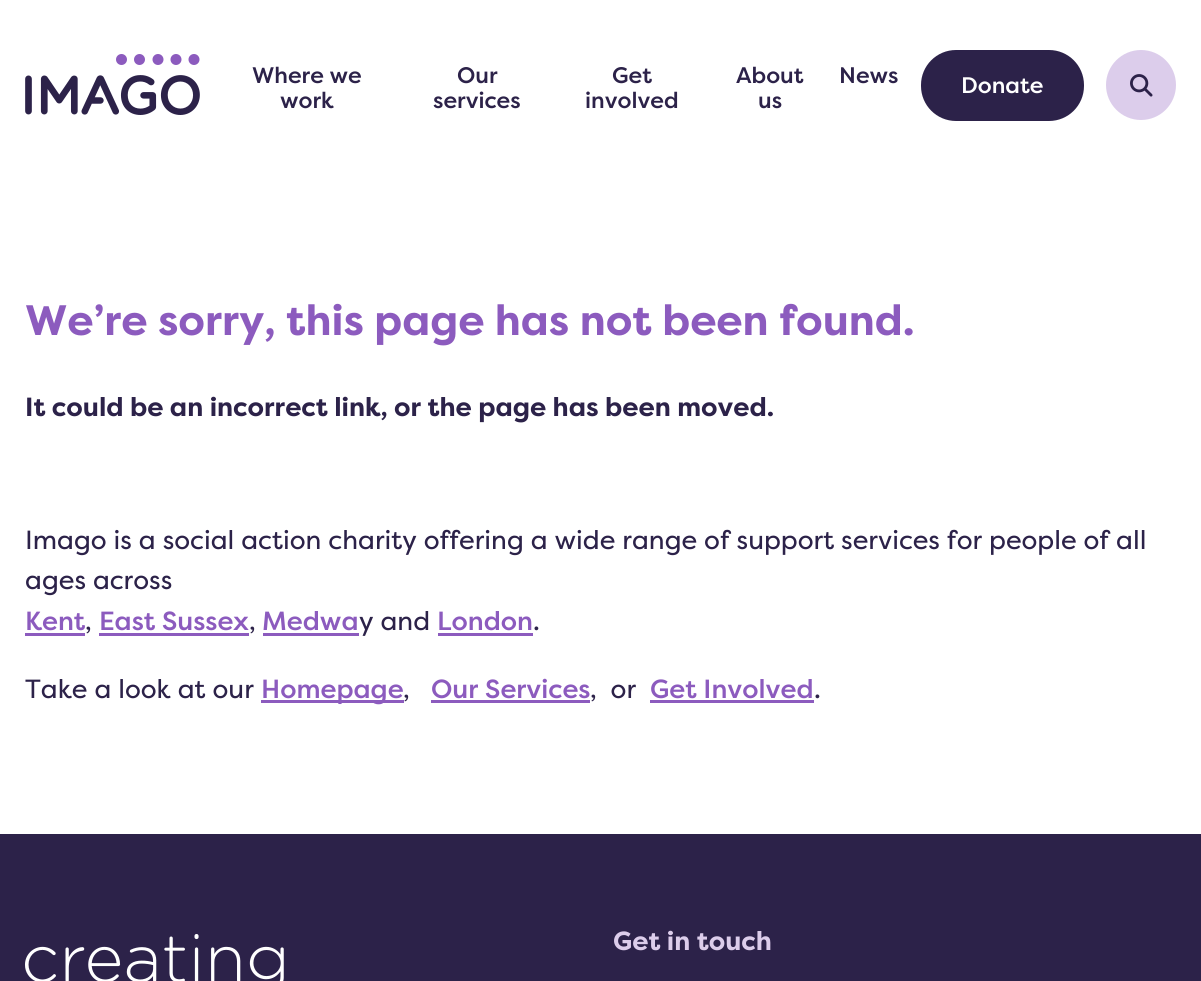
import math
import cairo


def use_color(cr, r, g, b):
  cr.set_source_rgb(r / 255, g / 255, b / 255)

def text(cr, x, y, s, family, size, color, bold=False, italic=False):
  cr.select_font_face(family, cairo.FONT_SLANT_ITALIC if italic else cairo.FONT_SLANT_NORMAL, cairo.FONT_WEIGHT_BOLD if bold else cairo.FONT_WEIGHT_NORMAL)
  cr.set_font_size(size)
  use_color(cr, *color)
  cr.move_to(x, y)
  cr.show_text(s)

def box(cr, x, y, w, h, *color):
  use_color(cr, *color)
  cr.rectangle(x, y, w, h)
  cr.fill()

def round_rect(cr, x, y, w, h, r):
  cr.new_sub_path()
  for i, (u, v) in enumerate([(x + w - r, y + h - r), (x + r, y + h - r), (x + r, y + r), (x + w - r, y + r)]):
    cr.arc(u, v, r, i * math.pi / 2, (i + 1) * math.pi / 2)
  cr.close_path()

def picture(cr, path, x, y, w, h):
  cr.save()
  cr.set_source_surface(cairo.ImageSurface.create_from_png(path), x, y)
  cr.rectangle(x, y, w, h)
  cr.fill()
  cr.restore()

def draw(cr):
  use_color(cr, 255, 255, 255)
  cr.paint()
  picture(cr, "img_01.png", 25, 54, 175, 61)
  use_color(cr, 44, 34, 73)
  round_rect(cr, 921, 50, 163, 71, 35)
  cr.fill()
  use_color(cr, 220, 205, 235)
  cr.arc(1141, 85, 35, 0, 2 * math.pi)
  cr.fill()
  picture(cr, "img_02.png", 1130, 74, 23, 23)
  box(cr, 25, 633, 60, 3, 140, 91, 190)
  box(cr, 99, 633, 150, 3, 140, 91, 190)
  box(cr, 263, 633, 96, 3, 140, 91, 190)
  box(cr, 438, 633, 95, 3, 140, 91, 190)
  box(cr, 261, 700, 143, 3, 140, 91, 190)
  box(cr, 431, 700, 159, 3, 140, 91, 190)
  box(cr, 650, 700, 164, 3, 140, 91, 190)
  box(cr, 0, 834, 1201, 147, 44, 34, 73)
  picture(cr, "img_03.png", 25, 934, 259, 47)
  text(cr, 252, 83, "Where we", "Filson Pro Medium", 22.5, (44, 34, 73))
  text(cr, 280, 108, "work", "Filson Pro Medium", 22.5, (44, 34, 73))
  text(cr, 457, 83, "Our", "Filson Pro Medium", 22.5, (44, 34, 73))
  text(cr, 433, 108, "services", "Filson Pro Medium", 22.5, (44, 34, 73))
  text(cr, 612, 83, "Get", "Filson Pro Medium", 22.5, (44, 34, 73))
  text(cr, 585, 108, "involved", "Filson Pro Medium", 22.5, (44, 34, 73))
  text(cr, 736, 83, "About", "Filson Pro Medium", 22.5, (44, 34, 73))
  text(cr, 758, 108, "us", "Filson Pro Medium", 22.5, (44, 34, 73))
  text(cr, 839, 83, "News", "Filson Pro Medium", 22.5, (44, 34, 73))
  text(cr, 961, 93, "Donate", "Filson Pro Medium", 22.5, (255, 255, 255))
  text(cr, 25, 335, "We’re sorry, this page has not been found.", "Filson Pro", 42.5, (140, 91, 190), bold=True)
  text(cr, 25, 416, "It could be an incorrect link, or the page has been moved.", "Filson Pro", 26.25, (44, 34, 73), bold=True)
  text(cr, 25, 549, "Imago is a social action charity offering a wide range of support services for people of all", "Filson Pro", 26.25, (44, 34, 73))
  text(cr, 25, 589, "ages across", "Filson Pro", 26.25, (44, 34, 73))
  text(cr, 25, 630, "Kent", "Filson Pro Medium", 26.25, (140, 91, 190))
  text(cr, 85, 630, ",", "Filson Pro", 26.25, (44, 34, 73))
  text(cr, 99, 630, "East Sussex", "Filson Pro Medium", 26.25, (140, 91, 190))
  text(cr, 249, 630, ",", "Filson Pro", 26.25, (44, 34, 73))
  text(cr, 262, 630, "Medwa", "Filson Pro Medium", 26.25, (140, 91, 190))
  text(cr, 359, 630, "y and", "Filson Pro", 26.25, (44, 34, 73))
  text(cr, 437, 630, "London", "Filson Pro Medium", 26.25, (140, 91, 190))
  text(cr, 533, 630, ".", "Filson Pro", 26.25, (44, 34, 73))
  text(cr, 25, 698, "Take a look at our", "Filson Pro", 26.25, (44, 34, 73))
  text(cr, 261, 698, "Homepage", "Filson Pro Medium", 26.25, (140, 91, 190))
  text(cr, 403, 698, ",", "Filson Pro", 26.25, (44, 34, 73))
  text(cr, 431, 698, "Our Services", "Filson Pro Medium", 26.25, (140, 91, 190))
  text(cr, 590, 698, ",  or", "Filson Pro", 26.25, (44, 34, 73))
  text(cr, 650, 698, "Get Involved", "Filson Pro Medium", 26.25, (140, 91, 190))
  text(cr, 814, 698, ".", "Filson Pro", 26.25, (44, 34, 73))
  text(cr, 613, 950, "Get in touch", "Filson Pro", 26.25, (220, 205, 235), bold=True)


surface = cairo.ImageSurface(cairo.FORMAT_RGB24, 1201, 981)
cr = cairo.Context(surface)
options = cairo.FontOptions()
options.set_hint_metrics(cairo.HINT_METRICS_OFF)
options.set_hint_style(cairo.HINT_STYLE_NONE)
cr.set_font_options(options)
cr.set_miter_limit(4)
draw(cr)
surface.write_to_png("out.png")
